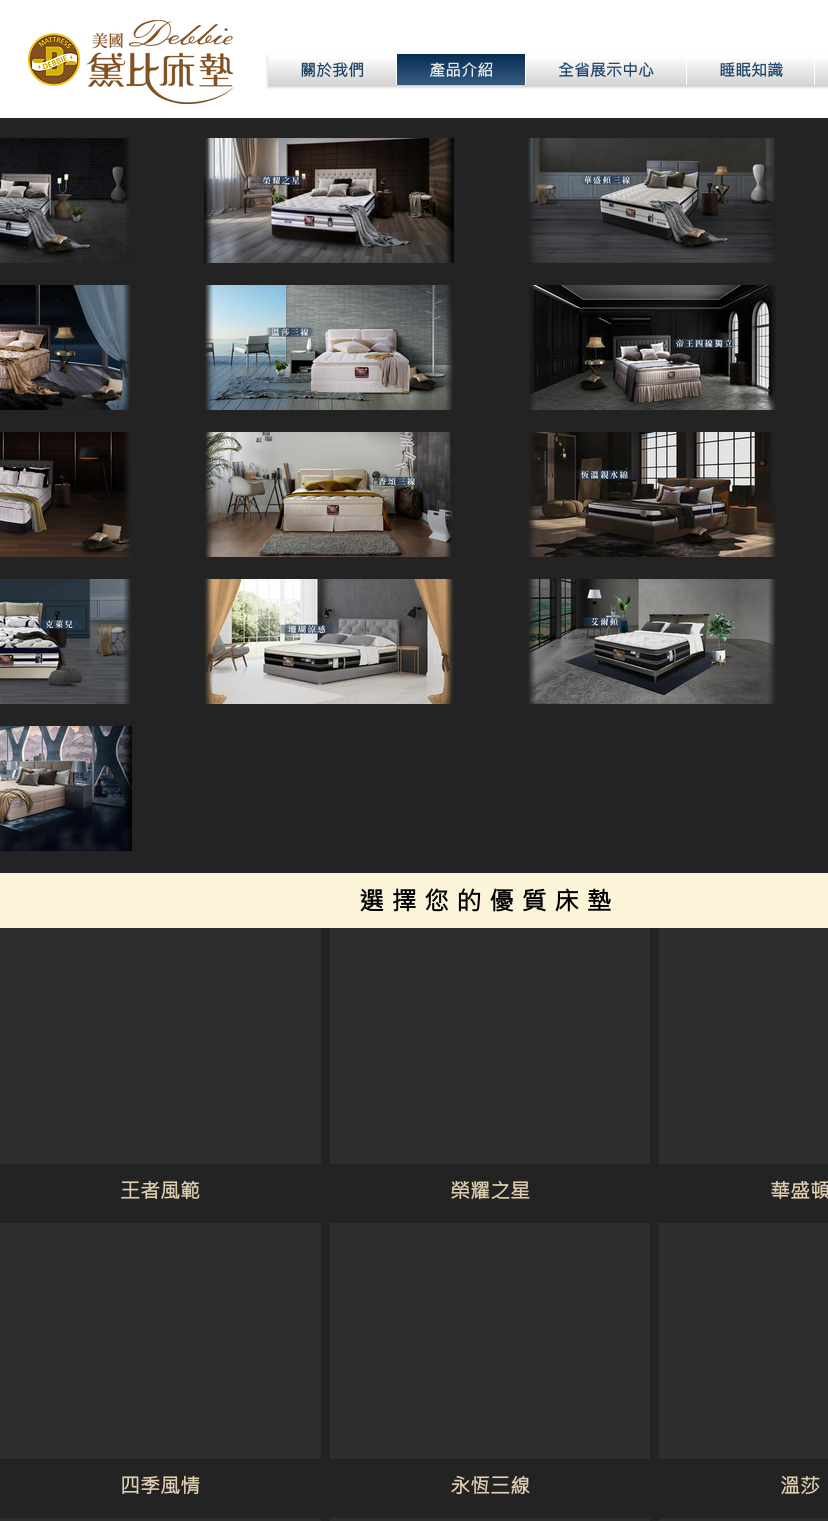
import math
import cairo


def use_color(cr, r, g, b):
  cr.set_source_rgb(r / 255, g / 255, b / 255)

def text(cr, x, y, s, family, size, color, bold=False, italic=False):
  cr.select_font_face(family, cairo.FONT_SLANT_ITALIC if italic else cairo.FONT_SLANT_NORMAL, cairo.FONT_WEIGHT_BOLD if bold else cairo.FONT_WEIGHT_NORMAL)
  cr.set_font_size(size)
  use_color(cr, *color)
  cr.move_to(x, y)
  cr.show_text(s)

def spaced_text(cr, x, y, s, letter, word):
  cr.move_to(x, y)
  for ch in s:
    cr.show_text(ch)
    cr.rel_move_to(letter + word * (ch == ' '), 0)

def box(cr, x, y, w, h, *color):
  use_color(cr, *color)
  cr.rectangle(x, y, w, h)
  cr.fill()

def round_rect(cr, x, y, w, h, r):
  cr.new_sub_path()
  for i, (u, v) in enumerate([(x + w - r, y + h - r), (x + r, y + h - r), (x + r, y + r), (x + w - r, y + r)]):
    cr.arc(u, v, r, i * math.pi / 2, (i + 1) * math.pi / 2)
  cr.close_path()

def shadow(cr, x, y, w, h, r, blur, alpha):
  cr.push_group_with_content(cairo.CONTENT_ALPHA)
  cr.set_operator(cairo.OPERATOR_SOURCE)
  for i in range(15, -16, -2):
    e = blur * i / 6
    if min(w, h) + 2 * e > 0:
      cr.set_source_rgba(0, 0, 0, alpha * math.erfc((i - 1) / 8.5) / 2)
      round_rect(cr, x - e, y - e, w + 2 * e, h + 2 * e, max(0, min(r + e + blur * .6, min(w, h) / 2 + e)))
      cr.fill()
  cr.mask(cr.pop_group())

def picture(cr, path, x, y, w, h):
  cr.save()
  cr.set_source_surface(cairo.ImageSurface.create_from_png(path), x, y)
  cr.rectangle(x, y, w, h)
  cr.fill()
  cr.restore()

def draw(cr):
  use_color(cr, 255, 255, 255)
  cr.paint()
  picture(cr, "img_01.png", 28, 20, 205, 84)
  use_color(cr, 162, 158, 158)
  shadow(cr, 268, 56, 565, 31, 0, 1.5, 0.6)
  box(cr, 268, 54, 129, 31, 255, 255, 255)
  box(cr, 397, 54, 128, 31, 0, 46, 93)
  box(cr, 525, 54, 303, 31, 255, 255, 255)
  picture(cr, "img_10.png", 815, 59, 13, 26)
  box(cr, 0, 118, 828, 755, 36, 35, 35)
  picture(cr, "img_11.png", 0, 138, 130, 125)
  picture(cr, "img_12.png", 204, 138, 250, 125)
  picture(cr, "img_13.png", 528, 138, 247, 125)
  picture(cr, "img_14.png", 0, 285, 131, 125)
  picture(cr, "img_15.png", 205, 285, 248, 125)
  picture(cr, "img_16.png", 529, 285, 247, 125)
  picture(cr, "img_17.png", 0, 432, 131, 125)
  picture(cr, "img_18.png", 205, 432, 248, 125)
  picture(cr, "img_19.png", 528, 432, 248, 125)
  picture(cr, "img_20.png", 0, 579, 131, 125)
  picture(cr, "img_21.png", 204, 579, 250, 125)
  picture(cr, "img_22.png", 528, 579, 248, 125)
  picture(cr, "img_23.png", 0, 726, 132, 125)
  box(cr, 0, 873, 828, 55, 252, 244, 216)
  box(cr, 0, 928, 828, 593, 36, 35, 35)
  box(cr, 0, 928, 321, 236, 47, 46, 46)
  box(cr, 330, 928, 320, 236, 47, 46, 46)
  box(cr, 659, 928, 169, 236, 47, 46, 46)
  box(cr, 0, 1223, 321, 236, 47, 46, 46)
  box(cr, 330, 1223, 320, 236, 47, 46, 46)
  box(cr, 659, 1223, 169, 236, 47, 46, 46)
  box(cr, 0, 1518, 321, 3, 47, 46, 46)
  box(cr, 330, 1518, 320, 3, 47, 46, 46)
  box(cr, 659, 1518, 169, 3, 47, 46, 46)
  text(cr, 300, 76, "關於我們", "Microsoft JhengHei", 16, (0, 46, 93), bold=True)
  picture(cr, "img_02.png", 301, 62, 62, 15)
  picture(cr, "img_03.png", 268, 59, 128, 26)
  text(cr, 429, 76, "產品介紹", "Microsoft JhengHei", 16, (255, 255, 255), bold=True)
  picture(cr, "img_04.png", 397, 54, 128, 23)
  picture(cr, "img_05.png", 397, 54, 128, 31)
  text(cr, 558, 76, "全省展示中心", "Microsoft JhengHei", 16, (0, 46, 93), bold=True)
  picture(cr, "img_06.png", 559, 62, 94, 15)
  picture(cr, "img_07.png", 526, 59, 160, 26)
  text(cr, 719, 76, "睡眠知識", "Microsoft JhengHei", 16, (0, 46, 93), bold=True)
  picture(cr, "img_08.png", 720, 63, 62, 14)
  picture(cr, "img_09.png", 687, 59, 127, 26)
  cr.set_font_size(25)
  use_color(cr, 0, 0, 0)
  spaced_text(cr, 359, 910, "選擇您的優質床墊", 7.5, 0)
  text(cr, 120, 1198, "王者風範", "Microsoft JhengHei", 20, (224, 206, 177), bold=True)
  text(cr, 450, 1198, "榮耀之星", "Microsoft JhengHei", 20, (224, 206, 177), bold=True)
  text(cr, 770, 1198, "華盛頓", "Microsoft JhengHei", 20, (224, 206, 177), bold=True)
  text(cr, 120, 1493, "四季風情", "Microsoft JhengHei", 20, (224, 206, 177), bold=True)
  text(cr, 450, 1493, "永恆三線", "Microsoft JhengHei", 20, (224, 206, 177), bold=True)
  text(cr, 780, 1493, "溫莎", "Microsoft JhengHei", 20, (224, 206, 177), bold=True)


surface = cairo.ImageSurface(cairo.FORMAT_RGB24, 828, 1521)
cr = cairo.Context(surface)
options = cairo.FontOptions()
options.set_hint_metrics(cairo.HINT_METRICS_OFF)
options.set_hint_style(cairo.HINT_STYLE_NONE)
cr.set_font_options(options)
cr.set_miter_limit(4)
draw(cr)
surface.write_to_png("out.png")
